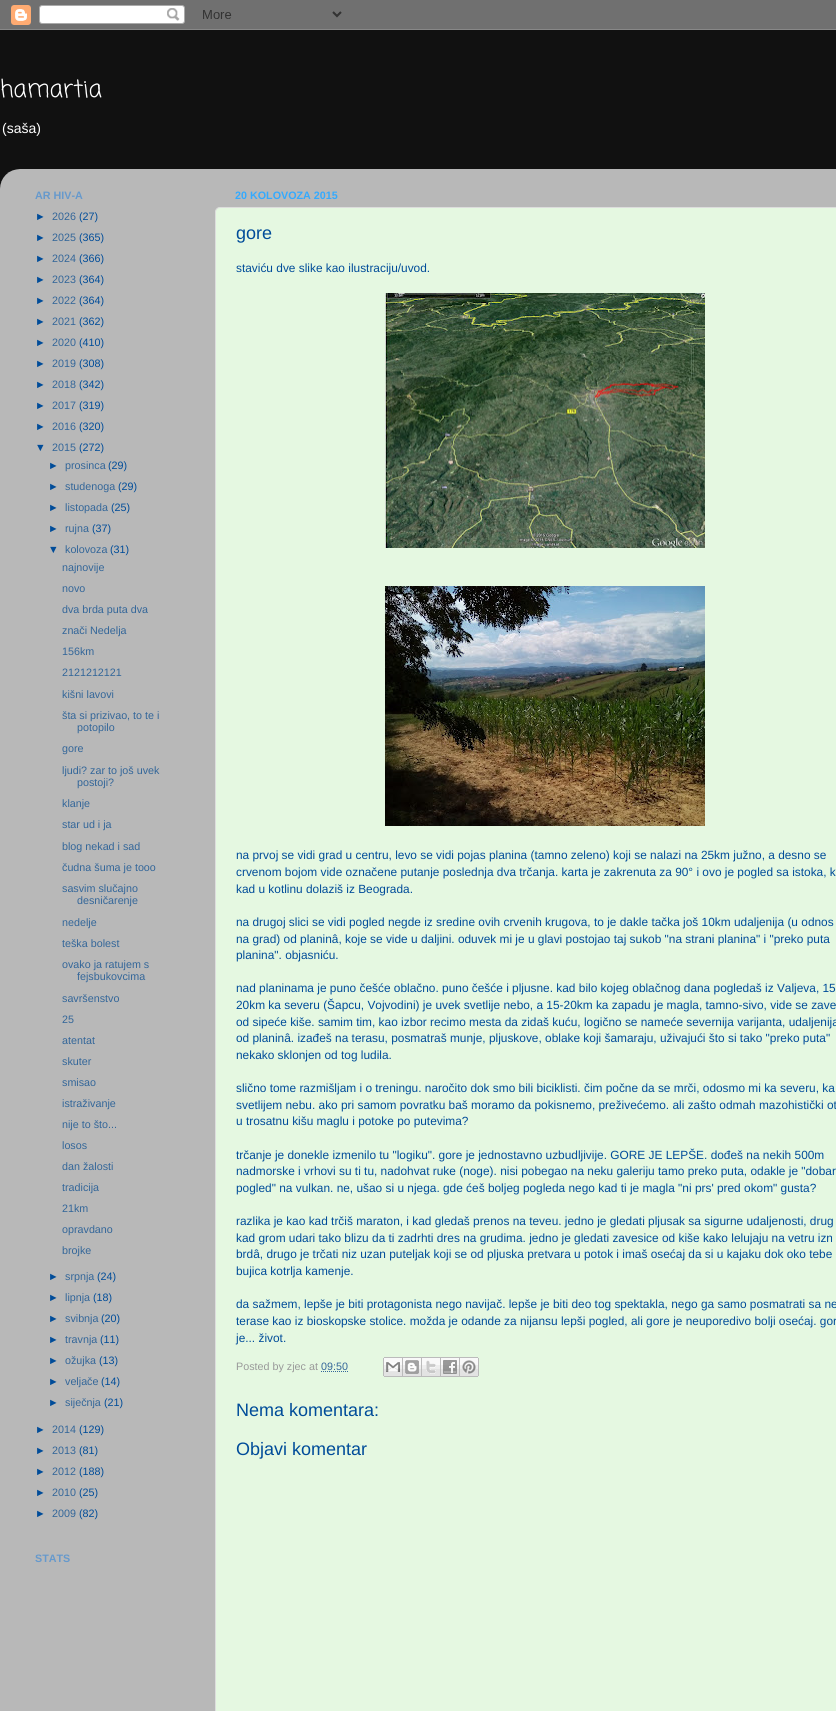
import math
import cairo


def use_color(cr, r, g, b):
  cr.set_source_rgb(r / 255, g / 255, b / 255)

def text(cr, x, y, s, family, size, color, bold=False, italic=False):
  cr.select_font_face(family, cairo.FONT_SLANT_ITALIC if italic else cairo.FONT_SLANT_NORMAL, cairo.FONT_WEIGHT_BOLD if bold else cairo.FONT_WEIGHT_NORMAL)
  cr.set_font_size(size)
  use_color(cr, *color)
  cr.move_to(x, y)
  cr.show_text(s)

def round_rect(cr, x, y, w, h, r):
  cr.new_sub_path()
  for i, (u, v) in enumerate([(x + w - r, y + h - r), (x + r, y + h - r), (x + r, y + r), (x + w - r, y + r)]):
    cr.arc(u, v, r, i * math.pi / 2, (i + 1) * math.pi / 2)
  cr.close_path()

def picture(cr, path, x, y, w, h):
  cr.save()
  cr.set_source_surface(cairo.ImageSurface.create_from_png(path), x, y)
  cr.rectangle(x, y, w, h)
  cr.fill()
  cr.restore()

def draw(cr):
  use_color(cr, 17, 17, 17)
  cr.paint()
  picture(cr, "img_01.png", 0, 0, 836, 30)
  picture(cr, "img_02.png", 0, 169, 836, 1542)
  use_color(cr, 229, 248, 225)
  round_rect(cr, 215.5, 207.5, 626, 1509, 4.5)
  cr.fill_preserve()
  use_color(cr, 221, 221, 221)
  cr.set_line_width(1)
  cr.stroke()
  picture(cr, "img_03.png", 385, 293, 320, 255)
  picture(cr, "img_04.png", 385, 586, 320, 240)
  cr.new_path()
  cr.move_to(321, 1371.5)
  cr.line_to(348.5, 1371.5)
  use_color(cr, 51, 102, 153)
  cr.set_dash([1, 1])
  cr.stroke()
  picture(cr, "img_05.png", 383, 1357, 20, 20)
  picture(cr, "img_06.png", 403, 1357, 19, 20)
  picture(cr, "img_07.png", 422, 1357, 19, 20)
  picture(cr, "img_08.png", 441, 1357, 19, 20)
  picture(cr, "img_09.png", 460, 1357, 19, 20)
  text(cr, 0, 97, "hamartia", "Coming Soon", 24, (255, 255, 255))
  text(cr, 2, 133, "(saša)", "Liberation Sans", 14, (255, 255, 255))
  text(cr, 35, 199, "AR HIV-A", "Liberation Sans", 10.75, (102, 153, 204), bold=True)
  text(cr, 35, 220, "►", "Liberation Sans", 10.75, (0, 76, 153))
  text(cr, 52, 220, "2026", "Liberation Sans", 10.75, (51, 102, 153))
  text(cr, 79, 220, "(27)", "Liberation Sans", 10.75, (0, 76, 153))
  text(cr, 35, 241, "►", "Liberation Sans", 10.75, (0, 76, 153))
  text(cr, 52, 241, "2025", "Liberation Sans", 10.75, (51, 102, 153))
  text(cr, 79, 241, "(365)", "Liberation Sans", 10.75, (0, 76, 153))
  text(cr, 35, 262, "►", "Liberation Sans", 10.75, (0, 76, 153))
  text(cr, 52, 262, "2024", "Liberation Sans", 10.75, (51, 102, 153))
  text(cr, 79, 262, "(366)", "Liberation Sans", 10.75, (0, 76, 153))
  text(cr, 35, 283, "►", "Liberation Sans", 10.75, (0, 76, 153))
  text(cr, 52, 283, "2023", "Liberation Sans", 10.75, (51, 102, 153))
  text(cr, 79, 283, "(364)", "Liberation Sans", 10.75, (0, 76, 153))
  text(cr, 35, 304, "►", "Liberation Sans", 10.75, (0, 76, 153))
  text(cr, 52, 304, "2022", "Liberation Sans", 10.75, (51, 102, 153))
  text(cr, 79, 304, "(364)", "Liberation Sans", 10.75, (0, 76, 153))
  text(cr, 35, 325, "►", "Liberation Sans", 10.75, (0, 76, 153))
  text(cr, 52, 325, "2021", "Liberation Sans", 10.75, (51, 102, 153))
  text(cr, 79, 325, "(362)", "Liberation Sans", 10.75, (0, 76, 153))
  text(cr, 35, 346, "►", "Liberation Sans", 10.75, (0, 76, 153))
  text(cr, 52, 346, "2020", "Liberation Sans", 10.75, (51, 102, 153))
  text(cr, 79, 346, "(410)", "Liberation Sans", 10.75, (0, 76, 153))
  text(cr, 35, 367, "►", "Liberation Sans", 10.75, (0, 76, 153))
  text(cr, 52, 367, "2019", "Liberation Sans", 10.75, (51, 102, 153))
  text(cr, 79, 367, "(308)", "Liberation Sans", 10.75, (0, 76, 153))
  text(cr, 35, 388, "►", "Liberation Sans", 10.75, (0, 76, 153))
  text(cr, 52, 388, "2018", "Liberation Sans", 10.75, (51, 102, 153))
  text(cr, 79, 388, "(342)", "Liberation Sans", 10.75, (0, 76, 153))
  text(cr, 35, 409, "►", "Liberation Sans", 10.75, (0, 76, 153))
  text(cr, 52, 409, "2017", "Liberation Sans", 10.75, (51, 102, 153))
  text(cr, 79, 409, "(319)", "Liberation Sans", 10.75, (0, 76, 153))
  text(cr, 35, 430, "►", "Liberation Sans", 10.75, (0, 76, 153))
  text(cr, 52, 430, "2016", "Liberation Sans", 10.75, (51, 102, 153))
  text(cr, 79, 430, "(320)", "Liberation Sans", 10.75, (0, 76, 153))
  text(cr, 35, 451, "▼", "Liberation Sans", 10.75, (0, 76, 153))
  text(cr, 52, 451, "2015", "Liberation Sans", 10.75, (51, 102, 153))
  text(cr, 79, 451, "(272)", "Liberation Sans", 10.75, (0, 76, 153))
  text(cr, 48, 469, "►", "Liberation Sans", 10.75, (0, 76, 153))
  text(cr, 65, 469, "prosinca", "Liberation Sans", 10.75, (51, 102, 153))
  text(cr, 108, 469, "(29)", "Liberation Sans", 10.75, (0, 76, 153))
  text(cr, 48, 490, "►", "Liberation Sans", 10.75, (0, 76, 153))
  text(cr, 65, 490, "studenoga", "Liberation Sans", 10.75, (51, 102, 153))
  text(cr, 118, 490, "(29)", "Liberation Sans", 10.75, (0, 76, 153))
  text(cr, 48, 511, "►", "Liberation Sans", 10.75, (0, 76, 153))
  text(cr, 65, 511, "listopada", "Liberation Sans", 10.75, (51, 102, 153))
  text(cr, 111, 511, "(25)", "Liberation Sans", 10.75, (0, 76, 153))
  text(cr, 48, 532, "►", "Liberation Sans", 10.75, (0, 76, 153))
  text(cr, 65, 532, "rujna", "Liberation Sans", 10.75, (51, 102, 153))
  text(cr, 92, 532, "(37)", "Liberation Sans", 10.75, (0, 76, 153))
  text(cr, 48, 553, "▼", "Liberation Sans", 10.75, (0, 76, 153))
  text(cr, 65, 553, "kolovoza", "Liberation Sans", 10.75, (51, 102, 153))
  text(cr, 110, 553, "(31)", "Liberation Sans", 10.75, (0, 76, 153))
  text(cr, 62, 571, "najnovije", "Liberation Sans", 10.75, (51, 102, 153))
  text(cr, 62, 592, "novo", "Liberation Sans", 10.75, (51, 102, 153))
  text(cr, 62, 613, "dva brda puta dva", "Liberation Sans", 10.75, (51, 102, 153))
  text(cr, 62, 634, "znači Nedelja", "Liberation Sans", 10.75, (51, 102, 153))
  text(cr, 62, 655, "156km", "Liberation Sans", 10.75, (51, 102, 153))
  text(cr, 62, 676, "2121212121", "Liberation Sans", 10.75, (51, 102, 153))
  text(cr, 62, 698, "kišni lavovi", "Liberation Sans", 10.75, (51, 102, 153))
  text(cr, 62, 719, "šta si prizivao, to te i", "Liberation Sans", 10.75, (51, 102, 153))
  text(cr, 77, 731, "potopilo", "Liberation Sans", 10.75, (51, 102, 153))
  text(cr, 62, 752, "gore", "Liberation Sans", 10.75, (51, 102, 153))
  text(cr, 62, 774, "ljudi? zar to još uvek", "Liberation Sans", 10.75, (51, 102, 153))
  text(cr, 77, 786, "postoji?", "Liberation Sans", 10.75, (51, 102, 153))
  text(cr, 62, 807, "klanje", "Liberation Sans", 10.75, (51, 102, 153))
  text(cr, 62, 828, "star ud i ja", "Liberation Sans", 10.75, (51, 102, 153))
  text(cr, 62, 850, "blog nekad i sad", "Liberation Sans", 10.75, (51, 102, 153))
  text(cr, 62, 871, "čudna šuma je tooo", "Liberation Sans", 10.75, (51, 102, 153))
  text(cr, 62, 892, "sasvim slučajno", "Liberation Sans", 10.75, (51, 102, 153))
  text(cr, 77, 904, "desničarenje", "Liberation Sans", 10.75, (51, 102, 153))
  text(cr, 62, 926, "nedelje", "Liberation Sans", 10.75, (51, 102, 153))
  text(cr, 62, 947, "teška bolest", "Liberation Sans", 10.75, (51, 102, 153))
  text(cr, 62, 968, "ovako ja ratujem s", "Liberation Sans", 10.75, (51, 102, 153))
  text(cr, 77, 980, "fejsbukovcima", "Liberation Sans", 10.75, (51, 102, 153))
  text(cr, 62, 1002, "savršenstvo", "Liberation Sans", 10.75, (51, 102, 153))
  text(cr, 62, 1023, "25", "Liberation Sans", 10.75, (51, 102, 153))
  text(cr, 62, 1044, "atentat", "Liberation Sans", 10.75, (51, 102, 153))
  text(cr, 62, 1065, "skuter", "Liberation Sans", 10.75, (51, 102, 153))
  text(cr, 62, 1086, "smisao", "Liberation Sans", 10.75, (51, 102, 153))
  text(cr, 62, 1107, "istraživanje", "Liberation Sans", 10.75, (51, 102, 153))
  text(cr, 62, 1128, "nije to što...", "Liberation Sans", 10.75, (51, 102, 153))
  text(cr, 62, 1149, "losos", "Liberation Sans", 10.75, (51, 102, 153))
  text(cr, 62, 1170, "dan žalosti", "Liberation Sans", 10.75, (51, 102, 153))
  text(cr, 62, 1191, "tradicija", "Liberation Sans", 10.75, (51, 102, 153))
  text(cr, 62, 1212, "21km", "Liberation Sans", 10.75, (51, 102, 153))
  text(cr, 62, 1233, "opravdano", "Liberation Sans", 10.75, (51, 102, 153))
  text(cr, 62, 1254, "brojke", "Liberation Sans", 10.75, (51, 102, 153))
  text(cr, 48, 1280, "►", "Liberation Sans", 10.75, (0, 76, 153))
  text(cr, 65, 1280, "srpnja", "Liberation Sans", 10.75, (51, 102, 153))
  text(cr, 97, 1280, "(24)", "Liberation Sans", 10.75, (0, 76, 153))
  text(cr, 48, 1301, "►", "Liberation Sans", 10.75, (0, 76, 153))
  text(cr, 65, 1301, "lipnja", "Liberation Sans", 10.75, (51, 102, 153))
  text(cr, 93, 1301, "(18)", "Liberation Sans", 10.75, (0, 76, 153))
  text(cr, 48, 1322, "►", "Liberation Sans", 10.75, (0, 76, 153))
  text(cr, 65, 1322, "svibnja", "Liberation Sans", 10.75, (51, 102, 153))
  text(cr, 101, 1322, "(20)", "Liberation Sans", 10.75, (0, 76, 153))
  text(cr, 48, 1343, "►", "Liberation Sans", 10.75, (0, 76, 153))
  text(cr, 65, 1343, "travnja", "Liberation Sans", 10.75, (51, 102, 153))
  text(cr, 100, 1343, "(11)", "Liberation Sans", 10.75, (0, 76, 153))
  text(cr, 48, 1364, "►", "Liberation Sans", 10.75, (0, 76, 153))
  text(cr, 65, 1364, "ožujka", "Liberation Sans", 10.75, (51, 102, 153))
  text(cr, 99, 1364, "(13)", "Liberation Sans", 10.75, (0, 76, 153))
  text(cr, 48, 1385, "►", "Liberation Sans", 10.75, (0, 76, 153))
  text(cr, 65, 1385, "veljače", "Liberation Sans", 10.75, (51, 102, 153))
  text(cr, 101, 1385, "(14)", "Liberation Sans", 10.75, (0, 76, 153))
  text(cr, 48, 1406, "►", "Liberation Sans", 10.75, (0, 76, 153))
  text(cr, 65, 1406, "siječnja", "Liberation Sans", 10.75, (51, 102, 153))
  text(cr, 104, 1406, "(21)", "Liberation Sans", 10.75, (0, 76, 153))
  text(cr, 35, 1433, "►", "Liberation Sans", 10.75, (0, 76, 153))
  text(cr, 52, 1433, "2014", "Liberation Sans", 10.75, (51, 102, 153))
  text(cr, 79, 1433, "(129)", "Liberation Sans", 10.75, (0, 76, 153))
  text(cr, 35, 1454, "►", "Liberation Sans", 10.75, (0, 76, 153))
  text(cr, 52, 1454, "2013", "Liberation Sans", 10.75, (51, 102, 153))
  text(cr, 79, 1454, "(81)", "Liberation Sans", 10.75, (0, 76, 153))
  text(cr, 35, 1475, "►", "Liberation Sans", 10.75, (0, 76, 153))
  text(cr, 52, 1475, "2012", "Liberation Sans", 10.75, (51, 102, 153))
  text(cr, 79, 1475, "(188)", "Liberation Sans", 10.75, (0, 76, 153))
  text(cr, 35, 1496, "►", "Liberation Sans", 10.75, (0, 76, 153))
  text(cr, 52, 1496, "2010", "Liberation Sans", 10.75, (51, 102, 153))
  text(cr, 79, 1496, "(25)", "Liberation Sans", 10.75, (0, 76, 153))
  text(cr, 35, 1517, "►", "Liberation Sans", 10.75, (0, 76, 153))
  text(cr, 52, 1517, "2009", "Liberation Sans", 10.75, (51, 102, 153))
  text(cr, 79, 1517, "(82)", "Liberation Sans", 10.75, (0, 76, 153))
  text(cr, 35, 1562, "STATS", "Liberation Sans", 10.75, (102, 153, 204), bold=True)
  text(cr, 235, 199, "20 KOLOVOZA 2015", "Liberation Sans", 10.75, (51, 170, 255), bold=True)
  text(cr, 236, 239, "gore", "Liberation Sans", 18, (0, 76, 153))
  text(cr, 236, 272, "staviću dve slike kao ilustraciju/uvod.", "Liberation Sans", 11.88, (0, 76, 153))
  text(cr, 236, 859, "na prvoj se vidi grad u centru, levo se vidi pojas planina (tamno zeleno) koji se nalazi na 25km južno, a desno se", "Liberation Sans", 11.88, (0, 76, 153))
  text(cr, 236, 876, "crvenom bojom vide označene putanje poslednja dva trčanja. karta je zakrenuta za 90° i ovo je pogled sa istoka, k", "Liberation Sans", 11.88, (0, 76, 153))
  text(cr, 236, 893, "kad u kotlinu dolaziš iz Beograda.", "Liberation Sans", 11.88, (0, 76, 153))
  text(cr, 236, 926, "na drugoj slici se vidi pogled negde iz sredine ovih crvenih krugova, to je dakle tačka još 10km udaljenija (u odnos", "Liberation Sans", 11.88, (0, 76, 153))
  text(cr, 236, 943, "na grad) od planinâ, koje se vide u daljini. oduvek mi je u glavi postojao taj sukob \"na strani planina\" i \"preko puta", "Liberation Sans", 11.88, (0, 76, 153))
  text(cr, 236, 959, "planina\". objasniću.", "Liberation Sans", 11.88, (0, 76, 153))
  text(cr, 236, 992, "nad planinama je puno češće oblačno. puno češće i pljusne. kad bilo kojeg oblačnog dana pogledaš iz Valjeva, 15", "Liberation Sans", 11.88, (0, 76, 153))
  text(cr, 236, 1009, "20km ka severu (Šapcu, Vojvodini) je uvek svetlije nebo, a 15-20km ka zapadu je magla, tamno-sivo, vide se zave", "Liberation Sans", 11.88, (0, 76, 153))
  text(cr, 236, 1026, "od sipeće kiše. samim tim, kao izbor recimo mesta da zidaš kuću, logično se nameće severnija varijanta, udaljenija", "Liberation Sans", 11.88, (0, 76, 153))
  text(cr, 236, 1042, "od planinâ. izađeš na terasu, posmatraš munje, pljuskove, oblake koji šamaraju, uživajući što si tako \"preko puta\"", "Liberation Sans", 11.88, (0, 76, 153))
  text(cr, 236, 1059, "nekako sklonjen od tog ludila.", "Liberation Sans", 11.88, (0, 76, 153))
  text(cr, 236, 1092, "slično tome razmišljam i o treningu. naročito dok smo bili biciklisti. čim počne da se mrči, odosmo mi ka severu, ka", "Liberation Sans", 11.88, (0, 76, 153))
  text(cr, 236, 1109, "svetlijem nebu. ako pri samom povratku baš moramo da pokisnemo, preživećemo. ali zašto odmah mazohistički ot", "Liberation Sans", 11.88, (0, 76, 153))
  text(cr, 236, 1125, "u trosatnu kišu maglu i potoke po putevima?", "Liberation Sans", 11.88, (0, 76, 153))
  text(cr, 236, 1159, "trčanje je donekle izmenilo tu \"logiku\". gore je jednostavno uzbudljivije. GORE JE LEPŠE. dođeš na nekih 500m", "Liberation Sans", 11.88, (0, 76, 153))
  text(cr, 236, 1175, "nadmorske i vrhovi su ti tu, nadohvat ruke (noge). nisi pobegao na neku galeriju tamo preko puta, odakle je \"dobar", "Liberation Sans", 11.88, (0, 76, 153))
  text(cr, 236, 1192, "pogled\" na vulkan. ne, ušao si u njega. gde ćeš boljeg pogleda nego kad ti je magla \"ni prs' pred okom\" gusta?", "Liberation Sans", 11.88, (0, 76, 153))
  text(cr, 236, 1225, "razlika je kao kad trčiš maraton, i kad gledaš prenos na teveu. jedno je gledati pljusak sa sigurne udaljenosti, drug", "Liberation Sans", 11.88, (0, 76, 153))
  text(cr, 236, 1242, "kad grom udari tako blizu da ti zadrhti dres na grudima. jedno je gledati zavesice od kiše kako lelujaju na vetru izn", "Liberation Sans", 11.88, (0, 76, 153))
  text(cr, 236, 1258, "brdâ, drugo je trčati niz uzan puteljak koji se od pljuska pretvara u potok i imaš osećaj da si u kajaku dok oko tebe", "Liberation Sans", 11.88, (0, 76, 153))
  text(cr, 236, 1275, "bujica kotrlja kamenje.", "Liberation Sans", 11.88, (0, 76, 153))
  text(cr, 236, 1308, "da sažmem, lepše je biti protagonista nego navijač. lepše je biti deo tog spektakla, nego ga samo posmatrati sa ne", "Liberation Sans", 11.88, (0, 76, 153))
  text(cr, 236, 1325, "terase kao iz bioskopske stolice. možda je odande za nijansu lepši pogled, ali gore je neuporedivo bolji osećaj. gor", "Liberation Sans", 11.88, (0, 76, 153))
  text(cr, 236, 1342, "je... život.", "Liberation Sans", 11.88, (0, 76, 153))
  text(cr, 236, 1370, "Posted by zjec at", "Liberation Sans", 10.75, (153, 153, 153))
  text(cr, 321, 1370, "09:50", "Liberation Sans", 10.75, (51, 102, 153))
  text(cr, 236, 1416, "Nema komentara:", "Liberation Sans", 18, (0, 76, 153))
  text(cr, 236, 1455, "Objavi komentar", "Liberation Sans", 18, (0, 76, 153))


surface = cairo.ImageSurface(cairo.FORMAT_RGB24, 836, 1711)
cr = cairo.Context(surface)
options = cairo.FontOptions()
options.set_hint_metrics(cairo.HINT_METRICS_OFF)
options.set_hint_style(cairo.HINT_STYLE_NONE)
cr.set_font_options(options)
cr.set_miter_limit(4)
draw(cr)
surface.write_to_png("out.png")
